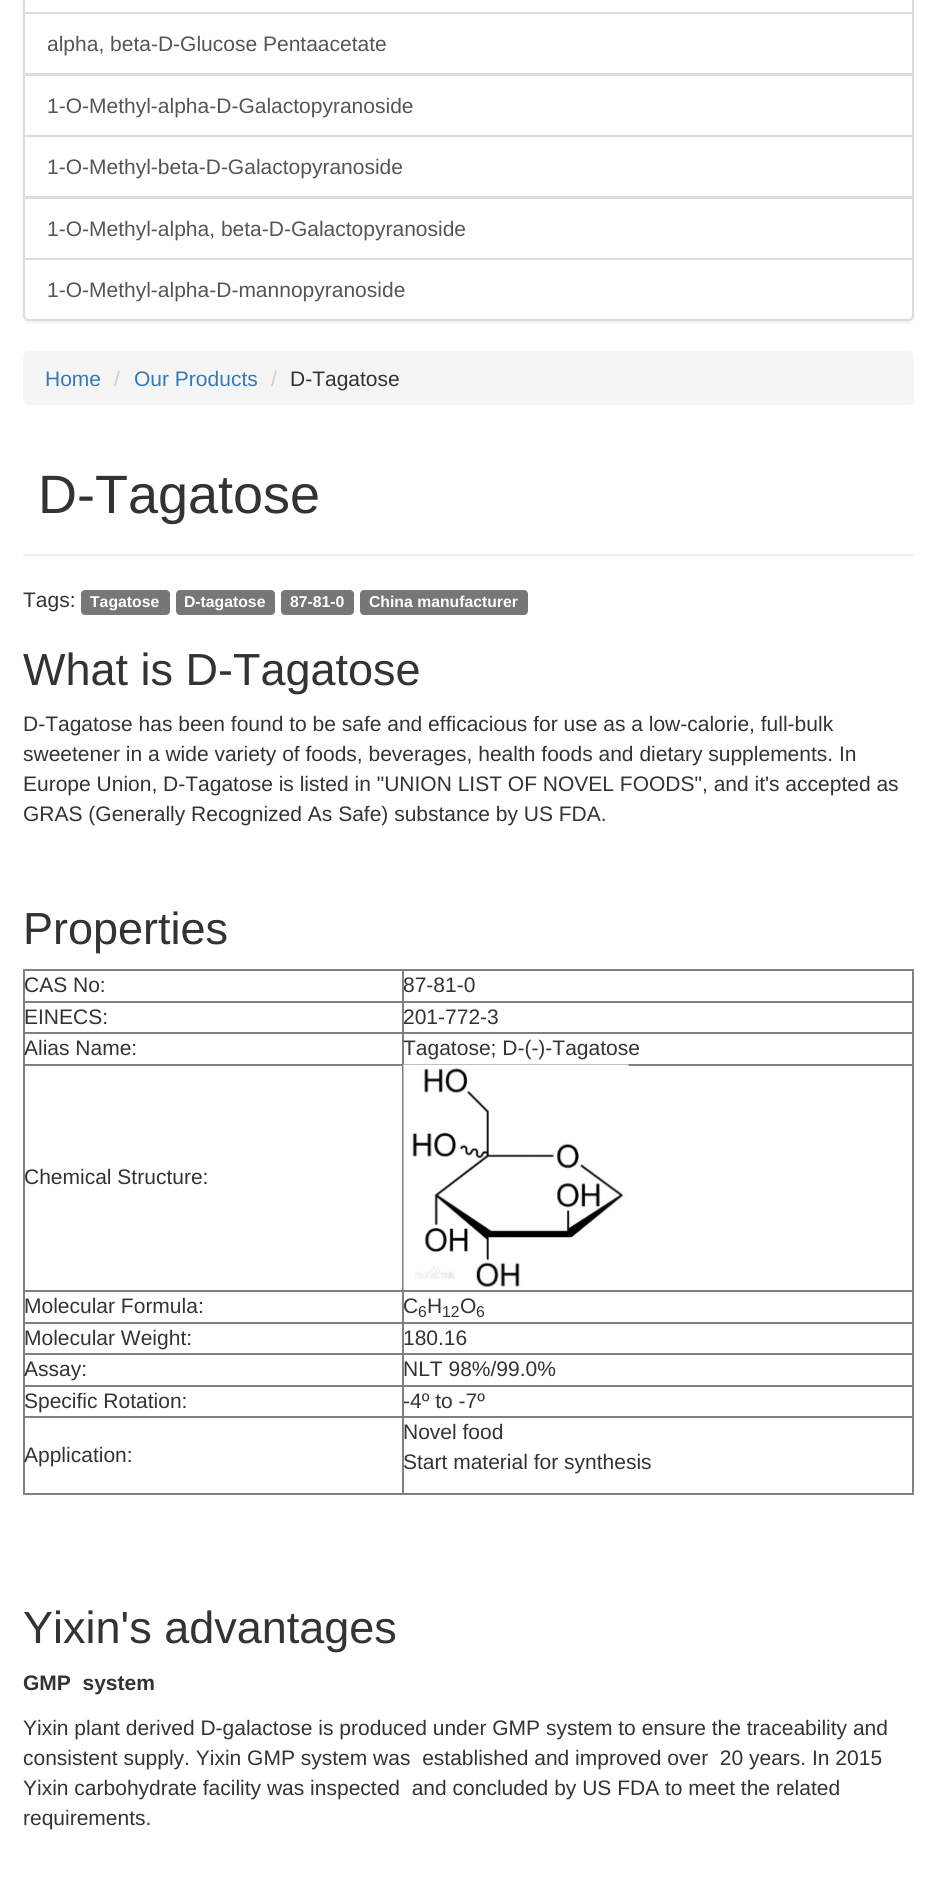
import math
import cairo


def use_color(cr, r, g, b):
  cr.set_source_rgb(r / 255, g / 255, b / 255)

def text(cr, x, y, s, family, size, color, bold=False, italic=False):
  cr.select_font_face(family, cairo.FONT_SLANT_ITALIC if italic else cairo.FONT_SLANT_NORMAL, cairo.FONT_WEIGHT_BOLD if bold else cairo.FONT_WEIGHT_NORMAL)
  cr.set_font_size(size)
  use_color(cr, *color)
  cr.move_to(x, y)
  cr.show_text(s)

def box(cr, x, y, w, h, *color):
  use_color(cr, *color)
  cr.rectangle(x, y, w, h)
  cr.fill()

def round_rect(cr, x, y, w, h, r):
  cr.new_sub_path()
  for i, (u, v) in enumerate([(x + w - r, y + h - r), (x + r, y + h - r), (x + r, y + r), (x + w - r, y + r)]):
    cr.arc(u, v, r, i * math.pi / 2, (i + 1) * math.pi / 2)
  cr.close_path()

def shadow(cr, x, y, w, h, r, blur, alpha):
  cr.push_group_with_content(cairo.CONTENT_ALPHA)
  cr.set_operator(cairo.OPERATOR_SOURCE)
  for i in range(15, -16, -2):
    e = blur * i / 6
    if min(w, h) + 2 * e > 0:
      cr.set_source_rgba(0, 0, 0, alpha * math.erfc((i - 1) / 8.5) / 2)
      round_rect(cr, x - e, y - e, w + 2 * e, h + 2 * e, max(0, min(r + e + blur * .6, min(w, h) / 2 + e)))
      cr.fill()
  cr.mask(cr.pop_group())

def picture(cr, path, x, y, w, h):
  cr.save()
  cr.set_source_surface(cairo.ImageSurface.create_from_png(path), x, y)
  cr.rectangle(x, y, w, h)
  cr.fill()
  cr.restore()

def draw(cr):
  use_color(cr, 255, 255, 255)
  cr.paint()
  use_color(cr, 0, 0, 0)
  shadow(cr, 23, -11, 891, 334, 6, 1.5, 0.07)
  use_color(cr, 255, 255, 255)
  cr.rectangle(24, -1, 889, 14)
  cr.fill_preserve()
  use_color(cr, 221, 221, 221)
  cr.stroke()
  use_color(cr, 255, 255, 255)
  cr.rectangle(24, 13, 889, 61)
  cr.fill_preserve()
  use_color(cr, 221, 221, 221)
  cr.stroke()
  use_color(cr, 255, 255, 255)
  cr.rectangle(24, 75, 889, 61)
  cr.fill_preserve()
  use_color(cr, 221, 221, 221)
  cr.stroke()
  use_color(cr, 255, 255, 255)
  cr.rectangle(24, 136, 889, 61)
  cr.fill_preserve()
  use_color(cr, 221, 221, 221)
  cr.stroke()
  use_color(cr, 255, 255, 255)
  cr.rectangle(24, 198, 889, 61)
  cr.fill_preserve()
  use_color(cr, 221, 221, 221)
  cr.stroke()
  use_color(cr, 255, 255, 255)
  cr.new_path()
  cr.move_to(24, 259)
  cr.line_to(913, 259)
  cr.line_to(913, 315)
  cr.curve_to(913, 318, 911, 320, 908, 320)
  cr.line_to(29, 320)
  cr.curve_to(26, 320, 24, 318, 24, 315)
  cr.close_path()
  cr.fill_preserve()
  use_color(cr, 221, 221, 221)
  cr.stroke()
  use_color(cr, 245, 245, 245)
  round_rect(cr, 23, 351, 891, 54, 6)
  cr.fill()
  box(cr, 23, 554, 891, 2, 238, 238, 238)
  use_color(cr, 119, 119, 119)
  round_rect(cr, 81, 590, 89, 25, 4)
  cr.fill()
  round_rect(cr, 176, 590, 99, 25, 4)
  cr.fill()
  round_rect(cr, 281, 590, 73, 25, 4)
  cr.fill()
  round_rect(cr, 360, 590, 168, 25, 4)
  cr.fill()
  box(cr, 23, 969, 891, 2, 128, 128, 128)
  box(cr, 912, 969, 2, 525, 128, 128, 128)
  box(cr, 23, 1493, 891, 2, 128, 128, 128)
  box(cr, 23, 969, 2, 525, 128, 128, 128)
  box(cr, 402, 1001, 512, 2, 128, 128, 128)
  box(cr, 402, 1032, 512, 2, 128, 128, 128)
  box(cr, 402, 1064, 512, 2, 128, 128, 128)
  box(cr, 402, 1290, 512, 2, 128, 128, 128)
  box(cr, 402, 1322, 512, 2, 128, 128, 128)
  box(cr, 402, 1353, 512, 2, 128, 128, 128)
  box(cr, 402, 1385, 512, 2, 128, 128, 128)
  box(cr, 402, 1416, 512, 2, 128, 128, 128)
  box(cr, 402, 1416, 2, 78, 128, 128, 128)
  box(cr, 23, 1416, 381, 2, 128, 128, 128)
  box(cr, 402, 1385, 2, 33, 128, 128, 128)
  box(cr, 23, 1385, 381, 2, 128, 128, 128)
  box(cr, 402, 1353, 2, 33, 128, 128, 128)
  box(cr, 23, 1353, 381, 2, 128, 128, 128)
  box(cr, 402, 1322, 2, 33, 128, 128, 128)
  box(cr, 23, 1322, 381, 2, 128, 128, 128)
  box(cr, 402, 1290, 2, 33, 128, 128, 128)
  box(cr, 23, 1290, 381, 2, 128, 128, 128)
  box(cr, 402, 1064, 2, 228, 128, 128, 128)
  box(cr, 23, 1064, 381, 2, 128, 128, 128)
  box(cr, 402, 1032, 2, 33, 128, 128, 128)
  box(cr, 23, 1032, 381, 2, 128, 128, 128)
  box(cr, 402, 1001, 2, 33, 128, 128, 128)
  box(cr, 23, 1001, 381, 2, 128, 128, 128)
  box(cr, 402, 969, 2, 33, 128, 128, 128)
  picture(cr, "img_01.png", 403, 1064, 226, 226)
  text(cr, 47, 51, "alpha, beta-D-Glucose Pentaacetate", "Liberation Sans", 21, (85, 85, 85))
  text(cr, 47, 113, "1-O-Methyl-alpha-D-Galactopyranoside", "Liberation Sans", 21, (85, 85, 85))
  text(cr, 47, 174, "1-O-Methyl-beta-D-Galactopyranoside", "Liberation Sans", 21, (85, 85, 85))
  text(cr, 47, 236, "1-O-Methyl-alpha, beta-D-Galactopyranoside", "Liberation Sans", 21, (85, 85, 85))
  text(cr, 47, 297, "1-O-Methyl-alpha-D-mannopyranoside", "Liberation Sans", 21, (85, 85, 85))
  text(cr, 45, 386, "Home", "Liberation Sans", 21, (51, 122, 183))
  text(cr, 114, 386, "/", "Liberation Sans", 21, (204, 204, 204))
  text(cr, 134, 386, "Our Products", "Liberation Sans", 21, (51, 122, 183))
  text(cr, 271, 386, "/", "Liberation Sans", 21, (204, 204, 204))
  text(cr, 290, 386, "D-Tagatose", "Liberation Sans", 21, (51, 51, 51))
  text(cr, 38, 513, "D-Tagatose", "Liberation Sans", 54, (51, 51, 51))
  text(cr, 23, 607, "Tags:", "Liberation Sans", 21, (51, 51, 51))
  text(cr, 90, 607, "Tagatose", "Liberation Sans", 15.75, (255, 255, 255), bold=True)
  text(cr, 184, 607, "D-tagatose", "Liberation Sans", 15.75, (255, 255, 255), bold=True)
  text(cr, 290, 607, "87-81-0", "Liberation Sans", 15.75, (255, 255, 255), bold=True)
  text(cr, 369, 607, "China manufacturer", "Liberation Sans", 15.75, (255, 255, 255), bold=True)
  text(cr, 23, 685, "What is D-Tagatose", "Liberation Sans", 45, (51, 51, 51))
  text(cr, 23, 731, "D-Tagatose has been found to be safe and efficacious for use as a low-calorie, full-bulk", "Liberation Sans", 21, (51, 51, 51))
  text(cr, 23, 761, "sweetener in a wide variety of foods, beverages, health foods and dietary supplements. In", "Liberation Sans", 21, (51, 51, 51))
  text(cr, 23, 791, "Europe Union, D-Tagatose is listed in \"UNION LIST OF NOVEL FOODS\", and it's accepted as", "Liberation Sans", 21, (51, 51, 51))
  text(cr, 23, 821, "GRAS (Generally Recognized As Safe) substance by US FDA.", "Liberation Sans", 21, (51, 51, 51))
  text(cr, 23, 944, "Properties", "Liberation Sans", 45, (51, 51, 51))
  text(cr, 24, 992, "CAS No:", "Liberation Sans", 21, (51, 51, 51))
  text(cr, 403, 992, "87-81-0", "Liberation Sans", 21, (51, 51, 51))
  text(cr, 24, 1024, "EINECS:", "Liberation Sans", 21, (51, 51, 51))
  text(cr, 403, 1024, "201-772-3", "Liberation Sans", 21, (51, 51, 51))
  text(cr, 24, 1055, "Alias Name:", "Liberation Sans", 21, (51, 51, 51))
  text(cr, 403, 1055, "Tagatose; D-(-)-Tagatose", "Liberation Sans", 21, (51, 51, 51))
  text(cr, 24, 1184, "Chemical Structure:", "Liberation Sans", 21, (51, 51, 51))
  text(cr, 24, 1313, "Molecular Formula:", "Liberation Sans", 21, (51, 51, 51))
  text(cr, 403, 1313, "C", "Liberation Sans", 21, (51, 51, 51))
  text(cr, 418, 1317, "6", "Liberation Sans", 15.75, (51, 51, 51))
  text(cr, 427, 1313, "H", "Liberation Sans", 21, (51, 51, 51))
  text(cr, 442, 1317, "12", "Liberation Sans", 15.75, (51, 51, 51))
  text(cr, 460, 1313, "O", "Liberation Sans", 21, (51, 51, 51))
  text(cr, 476, 1317, "6", "Liberation Sans", 15.75, (51, 51, 51))
  text(cr, 24, 1345, "Molecular Weight:", "Liberation Sans", 21, (51, 51, 51))
  text(cr, 403, 1345, "180.16", "Liberation Sans", 21, (51, 51, 51))
  text(cr, 24, 1376, "Assay:", "Liberation Sans", 21, (51, 51, 51))
  text(cr, 403, 1376, "NLT 98%/99.0%", "Liberation Sans", 21, (51, 51, 51))
  text(cr, 24, 1408, "Specific Rotation:", "Liberation Sans", 21, (51, 51, 51))
  text(cr, 403, 1408, "-4º to -7º", "Liberation Sans", 21, (51, 51, 51))
  text(cr, 24, 1462, "Application:", "Liberation Sans", 21, (51, 51, 51))
  text(cr, 403, 1439, "Novel food", "Liberation Sans", 21, (51, 51, 51))
  text(cr, 403, 1469, "Start material for synthesis", "Liberation Sans", 21, (51, 51, 51))
  text(cr, 23, 1643, "Yixin's advantages", "Liberation Sans", 45, (51, 51, 51))
  text(cr, 23, 1690, "GMP  system", "Liberation Sans", 21, (51, 51, 51), bold=True)
  text(cr, 23, 1735, "Yixin plant derived D-galactose is produced under GMP system to ensure the traceability and", "Liberation Sans", 21, (51, 51, 51))
  text(cr, 23, 1765, "consistent supply. Yixin GMP system was  established and improved over  20 years. In 2015", "Liberation Sans", 21, (51, 51, 51))
  text(cr, 23, 1795, "Yixin carbohydrate facility was inspected  and concluded by US FDA to meet the related", "Liberation Sans", 21, (51, 51, 51))
  text(cr, 23, 1825, "requirements.", "Liberation Sans", 21, (51, 51, 51))


surface = cairo.ImageSurface(cairo.FORMAT_RGB24, 935, 1889)
cr = cairo.Context(surface)
options = cairo.FontOptions()
options.set_hint_metrics(cairo.HINT_METRICS_OFF)
options.set_hint_style(cairo.HINT_STYLE_NONE)
cr.set_font_options(options)
cr.set_miter_limit(4)
draw(cr)
surface.write_to_png("out.png")
